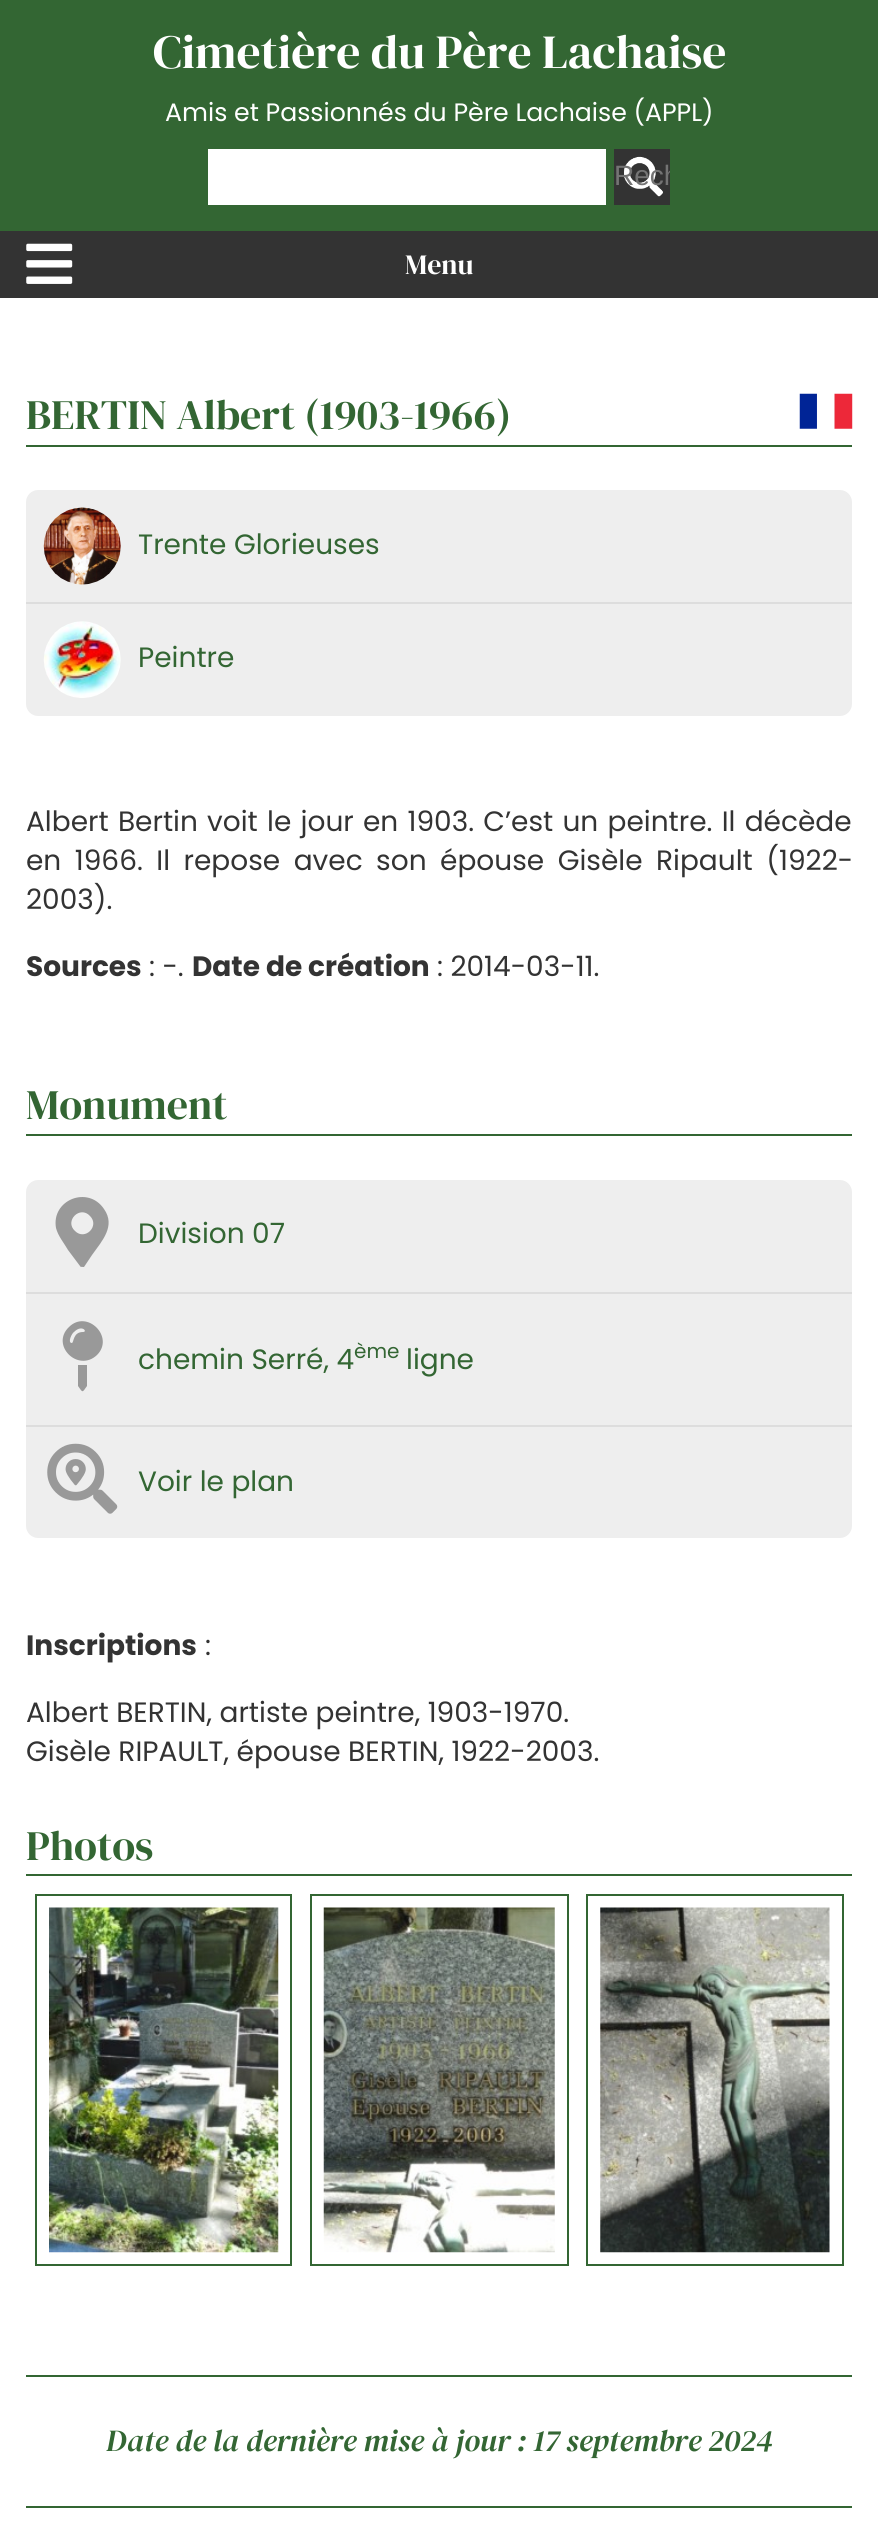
import math
import cairo


def use_color(cr, r, g, b):
  cr.set_source_rgb(r / 255, g / 255, b / 255)

def text(cr, x, y, s, family, size, color, bold=False, italic=False):
  cr.select_font_face(family, cairo.FONT_SLANT_ITALIC if italic else cairo.FONT_SLANT_NORMAL, cairo.FONT_WEIGHT_BOLD if bold else cairo.FONT_WEIGHT_NORMAL)
  cr.set_font_size(size)
  use_color(cr, *color)
  cr.move_to(x, y)
  cr.show_text(s)

def spaced_text(cr, x, y, s, letter, word):
  cr.move_to(x, y)
  for ch in s:
    cr.show_text(ch)
    cr.rel_move_to(letter + word * (ch == ' '), 0)

def box(cr, x, y, w, h, *color):
  use_color(cr, *color)
  cr.rectangle(x, y, w, h)
  cr.fill()

def picture(cr, path, x, y, w, h):
  cr.save()
  cr.set_source_surface(cairo.ImageSurface.create_from_png(path), x, y)
  cr.rectangle(x, y, w, h)
  cr.fill()
  cr.restore()

def draw(cr):
  use_color(cr, 255, 255, 255)
  cr.paint()
  box(cr, 0, 0, 878, 231, 51, 102, 51)
  box(cr, 208, 149, 398, 56, 255, 255, 255)
  box(cr, 614, 149, 56, 56, 51, 51, 51)
  picture(cr, "img_01.png", 624, 156, 39, 41)
  box(cr, 0, 231, 878, 67, 51, 51, 51)
  picture(cr, "img_02.png", 26, 243, 47, 41)
  box(cr, 26, 445, 826, 2, 51, 102, 51)
  picture(cr, "img_03.png", 799, 393, 54, 36)
  use_color(cr, 238, 238, 238)
  cr.new_path()
  cr.move_to(38, 490)
  cr.line_to(840, 490)
  cr.curve_to(846.5, 490, 852, 495.5, 852, 502)
  cr.line_to(852, 602)
  cr.line_to(26, 602)
  cr.line_to(26, 502)
  cr.curve_to(26, 495.5, 31.5, 490, 38, 490)
  cr.close_path()
  cr.fill()
  picture(cr, "img_04.png", 43, 507, 78, 78)
  cr.new_path()
  cr.move_to(26, 602)
  cr.line_to(852, 602)
  cr.line_to(852, 704)
  cr.curve_to(852, 710.5, 846.5, 716, 840, 716)
  cr.line_to(38, 716)
  cr.curve_to(31.5, 716, 26, 710.5, 26, 704)
  cr.close_path()
  cr.fill()
  box(cr, 26, 602, 826, 2, 221, 221, 221)
  picture(cr, "img_05.png", 43, 621, 78, 77)
  box(cr, 26, 1134, 826, 2, 51, 102, 51)
  use_color(cr, 238, 238, 238)
  cr.new_path()
  cr.move_to(38, 1180)
  cr.line_to(840, 1180)
  cr.curve_to(846.5, 1180, 852, 1185.5, 852, 1192)
  cr.line_to(852, 1292)
  cr.line_to(26, 1292)
  cr.line_to(26, 1192)
  cr.curve_to(26, 1185.5, 31.5, 1180, 38, 1180)
  cr.close_path()
  cr.fill()
  use_color(cr, 153, 153, 153)
  cr.new_path()
  cr.move_to(80, 1266)
  cr.line_to(68, 1250)
  cr.curve_to(64, 1243, 58, 1236, 56, 1228)
  cr.curve_to(51, 1200, 88, 1185, 104, 1209)
  cr.curve_to(116, 1226, 102, 1241, 92, 1255)
  cr.line_to(84, 1267)
  cr.curve_to(82, 1267, 80, 1267, 80, 1266)
  cr.close_path()
  cr.move_to(75, 1231)
  cr.curve_to(85, 1241, 100, 1226, 90, 1216)
  cr.curve_to(80, 1205, 64, 1221, 75, 1231)
  cr.close_path()
  cr.fill()
  box(cr, 26, 1294, 826, 131, 238, 238, 238)
  box(cr, 26, 1292, 826, 2, 221, 221, 221)
  use_color(cr, 153, 153, 153)
  cr.new_path()
  cr.move_to(78, 1365)
  cr.curve_to(81, 1365, 84, 1365, 87, 1365)
  cr.line_to(87, 1386)
  cr.curve_to(82, 1393, 83, 1393, 78, 1386)
  cr.close_path()
  cr.move_to(69, 1327)
  cr.curve_to(87, 1309, 115, 1337, 97, 1355)
  cr.curve_to(78, 1373, 50, 1345, 69, 1327)
  cr.close_path()
  cr.move_to(83, 1332)
  cr.curve_to(88, 1332, 82, 1324, 74, 1332)
  cr.curve_to(72, 1333, 67, 1343, 72, 1343)
  cr.curve_to(74, 1342, 73, 1332, 83, 1332)
  cr.close_path()
  cr.fill()
  use_color(cr, 238, 238, 238)
  cr.new_path()
  cr.move_to(26, 1425)
  cr.line_to(852, 1425)
  cr.line_to(852, 1526)
  cr.curve_to(852, 1532.5, 846.5, 1538, 840, 1538)
  cr.line_to(38, 1538)
  cr.curve_to(31.5, 1538, 26, 1532.5, 26, 1526)
  cr.close_path()
  cr.fill()
  box(cr, 26, 1425, 826, 2, 221, 221, 221)
  picture(cr, "img_06.png", 47, 1443, 71, 71)
  box(cr, 26, 1874, 826, 2, 51, 102, 51)
  cr.rectangle(36, 1895, 255, 370)
  cr.stroke()
  picture(cr, "img_07.png", 49, 1907, 230, 346)
  cr.rectangle(311, 1895, 257, 370)
  cr.stroke()
  picture(cr, "img_08.png", 323, 1907, 232, 346)
  cr.rectangle(587, 1895, 256, 370)
  cr.stroke()
  picture(cr, "img_09.png", 600, 1907, 230, 346)
  box(cr, 26, 2375, 826, 2, 51, 102, 51)
  box(cr, 26, 2506, 826, 2, 51, 102, 51)
  text(cr, 153, 68, "Cimetière du Père Lachaise", "DM Serif Display", 47.6, (255, 255, 255))
  text(cr, 165, 121, "Amis et Passionnés du Père Lachaise (APPL)", "Poppins", 25.2, (255, 255, 255))
  cr.save()
  cr.rectangle(614, 149, 56, 56)
  cr.clip()
  text(cr, 614, 185, "Rech", "Liberation Sans", 28, (116, 116, 116))
  cr.restore()
  text(cr, 405, 274, "Menu", "DM Serif Display", 28, (255, 255, 255))
  text(cr, 26, 429, "BERTIN Albert (1903-1966)", "DM Serif Display", 42, (51, 102, 51))
  text(cr, 138, 554, "Trente Glorieuses", "Poppins", 28, (51, 102, 51))
  text(cr, 138, 667, "Peintre", "Poppins", 28, (51, 102, 51))
  use_color(cr, 51, 51, 51)
  spaced_text(cr, 26, 831, "Albert Bertin voit le jour en 1903. C’est un peintre. Il décède", 0, 1.75)
  spaced_text(cr, 26, 870, "en 1966. Il repose avec son épouse Gisèle Ripault (1922-", 0, 6)
  text(cr, 26, 909, "2003).", "Poppins", 28, (51, 51, 51))
  text(cr, 26, 976, "Sources", "Poppins", 28, (51, 51, 51), bold=True)
  text(cr, 149, 976, ": -.", "Poppins", 28, (51, 51, 51))
  text(cr, 192, 976, "Date de création", "Poppins", 28, (51, 51, 51), bold=True)
  text(cr, 437, 976, ": 2014-03-11.", "Poppins", 28, (51, 51, 51))
  text(cr, 26, 1119, "Monument", "DM Serif Display", 42, (51, 102, 51))
  text(cr, 138, 1243, "Division 07", "Poppins", 28, (51, 102, 51))
  text(cr, 138, 1369, "chemin Serré, 4", "Poppins", 28, (51, 102, 51))
  text(cr, 354, 1358, "ème", "Poppins", 20, (51, 102, 51))
  text(cr, 406, 1369, "ligne", "Poppins", 28, (51, 102, 51))
  text(cr, 138, 1491, "Voir le plan", "Poppins", 28, (51, 102, 51))
  text(cr, 26, 1655, "Inscriptions", "Poppins", 28, (51, 51, 51), bold=True)
  text(cr, 205, 1655, ":", "Poppins", 28, (51, 51, 51))
  text(cr, 26, 1722, "Albert BERTIN, artiste peintre, 1903-1970.", "Poppins", 28, (51, 51, 51))
  text(cr, 26, 1761, "Gisèle RIPAULT, épouse BERTIN, 1922-2003.", "Poppins", 28, (51, 51, 51))
  text(cr, 26, 1860, "Photos", "DM Serif Display", 42, (51, 102, 51))
  text(cr, 106, 2451, "Date de la dernière mise à jour : 17 septembre 2024", "DM Serif Display", 30.8, (51, 102, 51), italic=True)


surface = cairo.ImageSurface(cairo.FORMAT_RGB24, 878, 2525)
cr = cairo.Context(surface)
options = cairo.FontOptions()
options.set_hint_metrics(cairo.HINT_METRICS_OFF)
options.set_hint_style(cairo.HINT_STYLE_NONE)
cr.set_font_options(options)
cr.set_miter_limit(4)
draw(cr)
surface.write_to_png("out.png")
